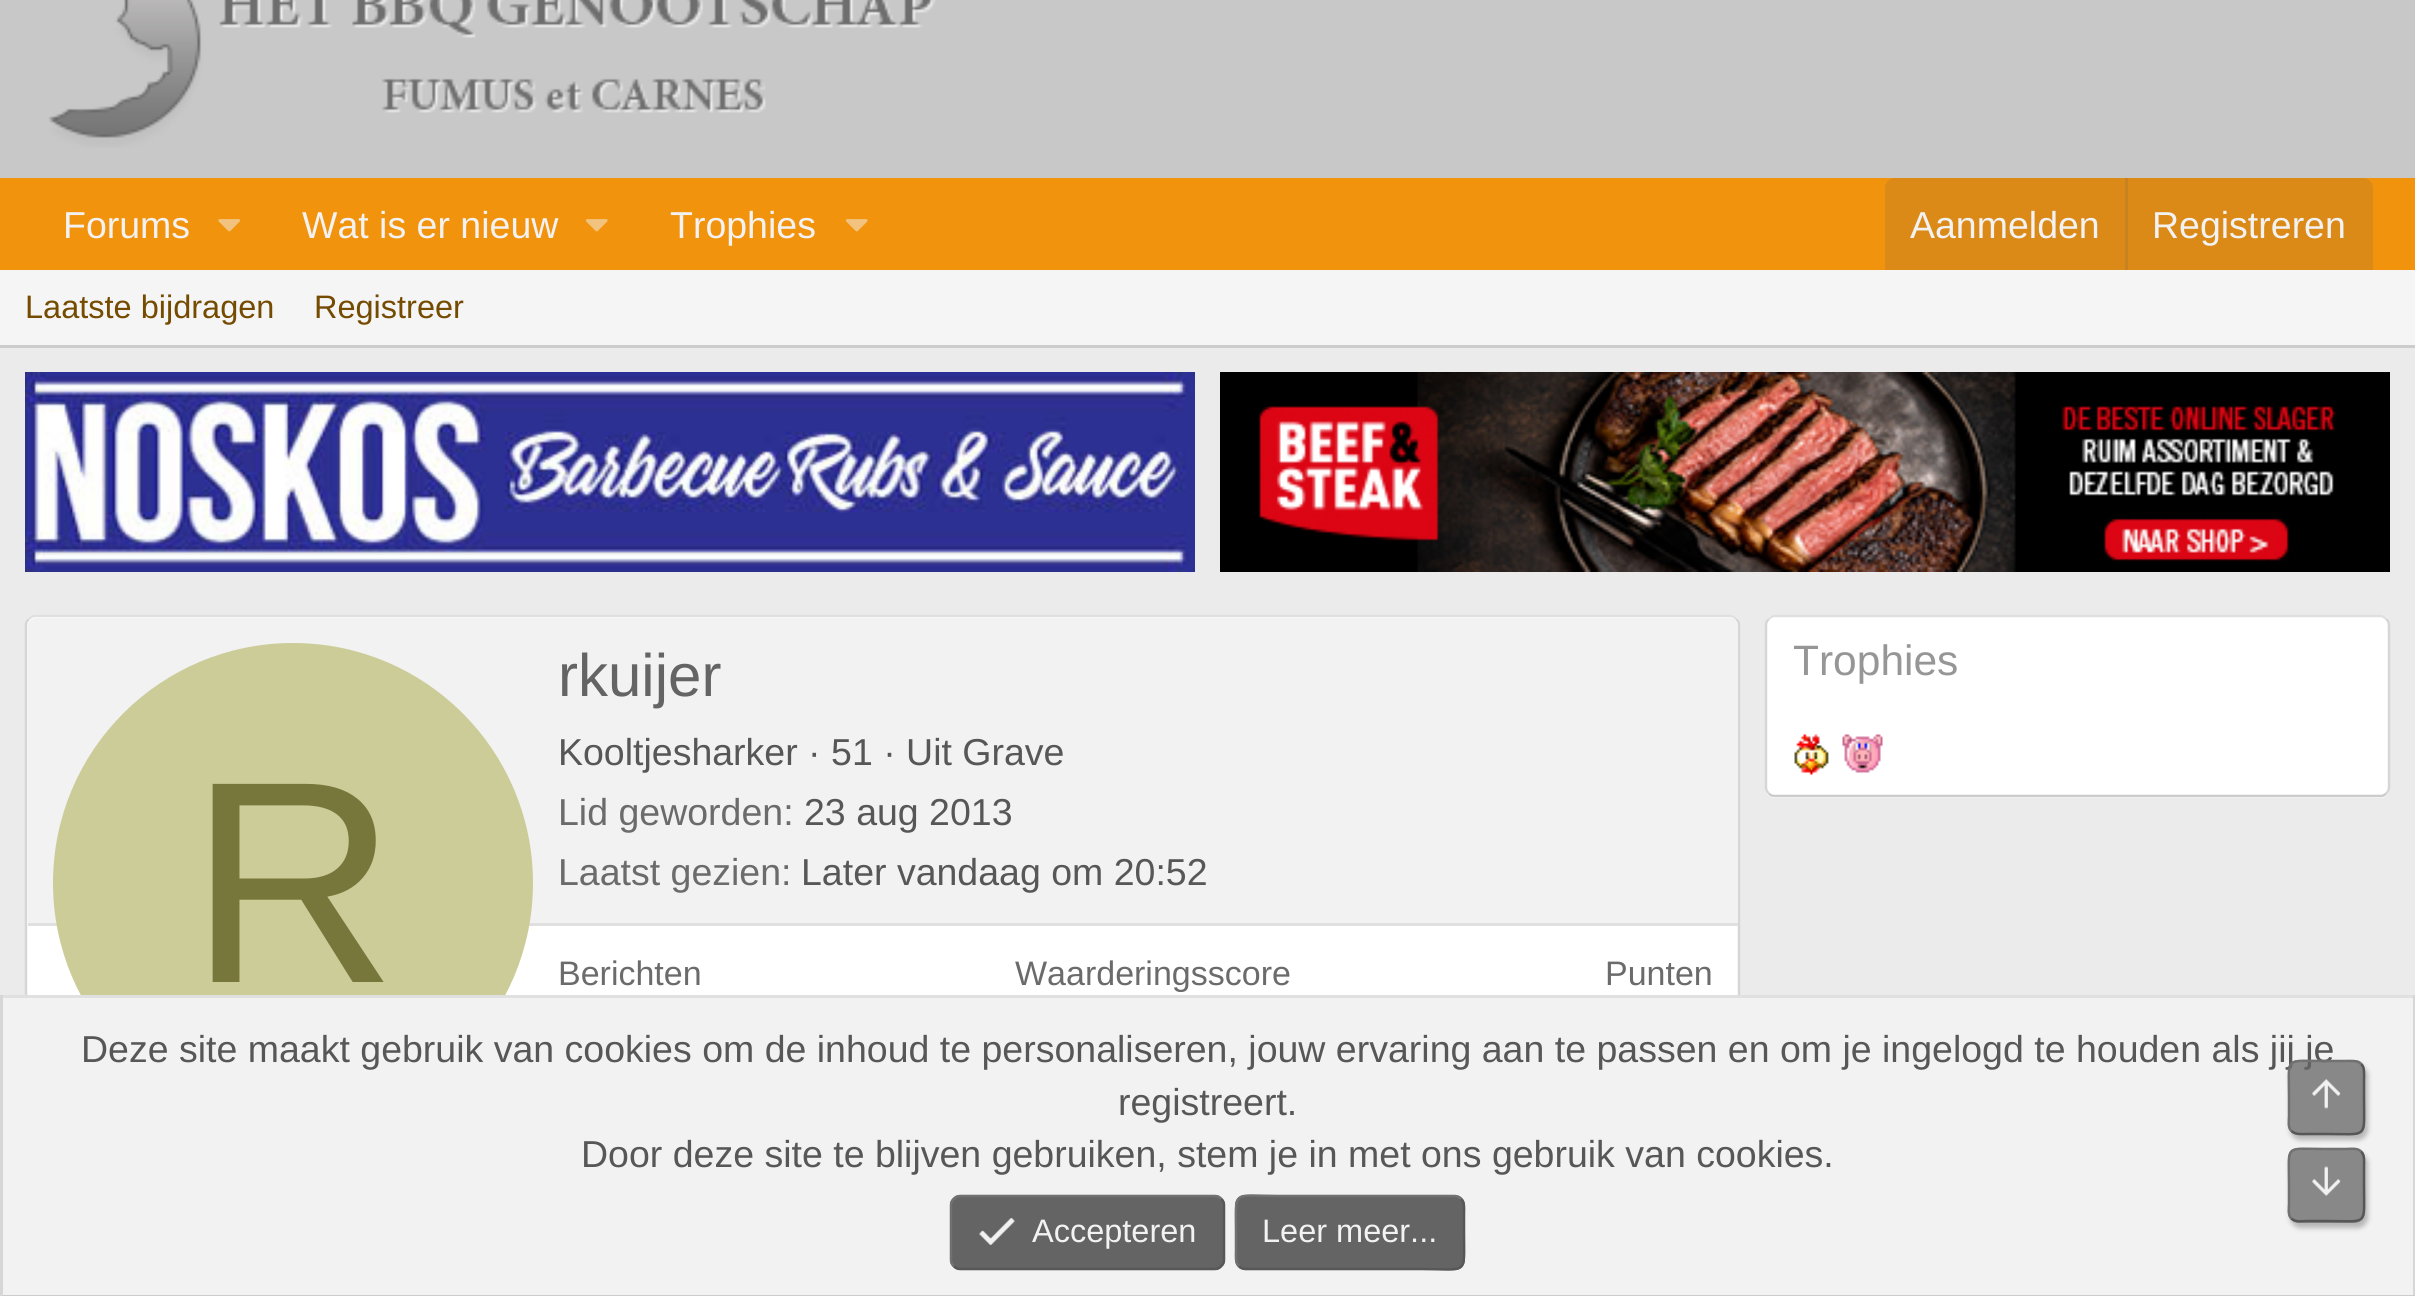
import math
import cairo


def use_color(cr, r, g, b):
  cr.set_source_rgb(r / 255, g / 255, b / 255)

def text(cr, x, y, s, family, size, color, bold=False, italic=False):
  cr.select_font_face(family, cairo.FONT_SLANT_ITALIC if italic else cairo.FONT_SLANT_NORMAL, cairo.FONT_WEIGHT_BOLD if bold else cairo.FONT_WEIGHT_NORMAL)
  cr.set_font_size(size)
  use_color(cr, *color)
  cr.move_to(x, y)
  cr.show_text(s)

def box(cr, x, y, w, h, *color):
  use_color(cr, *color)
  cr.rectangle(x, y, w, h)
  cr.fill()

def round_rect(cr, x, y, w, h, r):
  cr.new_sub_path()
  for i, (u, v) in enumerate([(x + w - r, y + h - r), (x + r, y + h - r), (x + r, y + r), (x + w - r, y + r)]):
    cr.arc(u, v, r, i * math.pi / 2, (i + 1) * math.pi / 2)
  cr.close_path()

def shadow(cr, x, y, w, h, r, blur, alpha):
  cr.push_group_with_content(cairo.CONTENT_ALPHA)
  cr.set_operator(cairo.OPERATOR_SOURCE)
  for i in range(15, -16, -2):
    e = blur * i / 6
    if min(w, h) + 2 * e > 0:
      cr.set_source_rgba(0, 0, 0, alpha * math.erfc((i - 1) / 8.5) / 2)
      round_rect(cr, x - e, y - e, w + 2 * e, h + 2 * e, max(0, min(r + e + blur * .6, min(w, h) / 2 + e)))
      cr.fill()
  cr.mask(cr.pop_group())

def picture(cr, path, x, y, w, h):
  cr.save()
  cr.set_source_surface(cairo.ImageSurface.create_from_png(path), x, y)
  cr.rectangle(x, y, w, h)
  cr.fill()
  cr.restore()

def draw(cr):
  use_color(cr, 235, 235, 235)
  cr.paint()
  box(cr, 0, 0, 2415, 178, 200, 200, 200)
  picture(cr, "img_01.png", 48, 0, 888, 148)
  box(cr, 0, 178, 2415, 92, 242, 147, 13)
  picture(cr, "img_02.png", 218, 219, 22, 13)
  picture(cr, "img_03.png", 585, 219, 23, 13)
  picture(cr, "img_03.png", 845, 219, 23, 13)
  use_color(cr, 219, 138, 24)
  cr.new_path()
  cr.move_to(1895, 178)
  cr.line_to(2363, 178)
  cr.curve_to(2368.5, 178, 2373, 182.5, 2373, 188)
  cr.line_to(2373, 270)
  cr.line_to(1885, 270)
  cr.line_to(1885, 188)
  cr.curve_to(1885, 182.5, 1889.5, 178, 1895, 178)
  cr.close_path()
  cr.fill()
  box(cr, 2125, 178, 3, 92, 199, 130, 33)
  box(cr, 0, 270, 2415, 75, 245, 245, 245)
  box(cr, 0, 345, 2415, 3, 204, 204, 204)
  picture(cr, "img_04.png", 25, 372, 1170, 200)
  picture(cr, "img_05.png", 1220, 372, 1170, 200)
  use_color(cr, 255, 255, 255)
  round_rect(cr, 25, 615, 1715, 598, 10)
  cr.fill()
  cr.new_path()
  cr.move_to(29, 619)
  cr.curve_to(30.5, 617, 32.5, 616, 35, 616)
  cr.line_to(1730, 616)
  cr.curve_to(1732.5, 616, 1734.5, 617, 1736, 619)
  use_color(cr, 224, 224, 224)
  cr.set_line_width(2.5)
  cr.stroke()
  cr.new_path()
  cr.move_to(1736, 619)
  cr.curve_to(1738, 620.5, 1739, 622.5, 1739, 625)
  cr.line_to(1739, 1202.5)
  cr.curve_to(1739, 1205, 1738, 1207, 1736, 1208.5)
  use_color(cr, 214, 214, 214)
  cr.stroke()
  cr.new_path()
  cr.move_to(29, 1208.5)
  cr.curve_to(27, 1207, 26, 1205, 26, 1202.5)
  cr.line_to(26, 625)
  cr.curve_to(26, 622.5, 27, 620.5, 29, 619)
  cr.stroke()
  use_color(cr, 242, 242, 242)
  cr.new_path()
  cr.move_to(36, 618)
  cr.line_to(1730, 618)
  cr.curve_to(1734.5, 618, 1738, 621.5, 1738, 626)
  cr.line_to(1738, 925)
  cr.line_to(28, 925)
  cr.line_to(28, 626)
  cr.curve_to(28, 621.5, 31.5, 618, 36, 618)
  cr.close_path()
  cr.fill()
  box(cr, 28, 923, 1710, 3, 224, 224, 224)
  use_color(cr, 204, 204, 153)
  cr.arc(293, 883, 240, 0, 2 * math.pi)
  cr.fill()
  use_color(cr, 255, 255, 255)
  round_rect(cr, 1765, 615, 625, 183, 10)
  cr.fill()
  cr.new_path()
  cr.move_to(1769, 619)
  cr.curve_to(1770.5, 617, 1772.5, 616, 1775, 616)
  cr.line_to(2380, 616)
  cr.curve_to(2382.5, 616, 2384.5, 617, 2386, 619)
  use_color(cr, 224, 224, 224)
  cr.stroke()
  cr.new_path()
  cr.move_to(2386, 619)
  cr.curve_to(2388, 620.5, 2389, 622.5, 2389, 625)
  cr.line_to(2389, 787.5)
  cr.curve_to(2389, 790, 2388, 792, 2386, 793.5)
  use_color(cr, 214, 214, 214)
  cr.stroke()
  cr.new_path()
  cr.move_to(2386, 793.5)
  cr.curve_to(2384.5, 795.5, 2382.5, 796, 2380, 796)
  cr.line_to(1775, 796)
  cr.curve_to(1772.5, 796, 1770.5, 795.5, 1769, 793.5)
  use_color(cr, 204, 204, 204)
  cr.stroke()
  cr.new_path()
  cr.move_to(1769, 793.5)
  cr.curve_to(1767, 792, 1766, 790, 1766, 787.5)
  cr.line_to(1766, 625)
  cr.curve_to(1766, 622.5, 1767, 620.5, 1769, 619)
  use_color(cr, 214, 214, 214)
  cr.stroke()
  picture(cr, "img_06.png", 1794, 734, 35, 41)
  picture(cr, "img_07.png", 1842, 734, 41, 39)
  box(cr, 3, 998, 2410, 297, 242, 242, 242)
  box(cr, 0, 995, 2415, 3, 224, 224, 224)
  box(cr, 2413, 995, 2, 301, 214, 214, 214)
  box(cr, 0, 1295, 2415, 1, 204, 204, 204)
  box(cr, 0, 995, 3, 301, 214, 214, 214)
  use_color(cr, 100, 100, 100)
  round_rect(cr, 950, 1195, 275, 75, 10)
  cr.fill()
  cr.new_path()
  cr.move_to(1221, 1199)
  cr.curve_to(1223, 1200.5, 1224, 1202.5, 1224, 1205)
  cr.line_to(1224, 1260)
  cr.curve_to(1224, 1262.5, 1223, 1264.5, 1221, 1266)
  cr.curve_to(1219.5, 1268, 1217.5, 1269, 1215, 1269)
  cr.line_to(960, 1269)
  cr.curve_to(957.5, 1269, 955.5, 1268, 954, 1266)
  use_color(cr, 87, 87, 87)
  cr.stroke()
  cr.new_path()
  cr.move_to(954, 1266)
  cr.curve_to(952, 1264.5, 951, 1262.5, 951, 1260)
  cr.line_to(951, 1205)
  cr.curve_to(951, 1202.5, 952, 1200.5, 954, 1199)
  cr.curve_to(955.5, 1197, 957.5, 1196, 960, 1196)
  cr.line_to(1215, 1196)
  cr.curve_to(1217.5, 1196, 1219.5, 1197, 1221, 1199)
  use_color(cr, 113, 113, 113)
  cr.stroke()
  picture(cr, "img_08.png", 979, 1218, 36, 27)
  use_color(cr, 100, 100, 100)
  round_rect(cr, 1235, 1195, 230, 75, 10)
  cr.fill()
  cr.new_path()
  cr.move_to(1461, 1199)
  cr.curve_to(1465, 1202.5, 1464, 1209.5, 1464, 1214)
  cr.line_to(1464, 1232.5)
  cr.curve_to(1464, 1276.5, 1469, 1269, 1420, 1269)
  cr.line_to(1245, 1269)
  cr.curve_to(1242.5, 1268.5, 1240.5, 1268, 1239, 1266)
  use_color(cr, 87, 87, 87)
  cr.stroke()
  cr.new_path()
  cr.move_to(1239, 1266)
  cr.curve_to(1235, 1262.5, 1236, 1255.5, 1236, 1251)
  cr.line_to(1236, 1232.5)
  cr.curve_to(1236, 1188.5, 1231, 1196, 1280, 1196)
  cr.line_to(1455, 1196)
  cr.curve_to(1457.5, 1196.5, 1459.5, 1197, 1461, 1199)
  use_color(cr, 113, 113, 113)
  cr.stroke()
  cr.save()
  cr.set_fill_rule(cairo.FILL_RULE_EVEN_ODD)
  cr.new_path()
  cr.move_to(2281, 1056)
  cr.line_to(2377, 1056)
  cr.line_to(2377, 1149)
  cr.line_to(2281, 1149)
  cr.close_path()
  cr.move_to(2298, 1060)
  cr.line_to(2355, 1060)
  cr.curve_to(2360.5, 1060, 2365, 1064.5, 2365, 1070)
  cr.line_to(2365, 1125)
  cr.curve_to(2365, 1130.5, 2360.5, 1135, 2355, 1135)
  cr.line_to(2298, 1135)
  cr.curve_to(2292.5, 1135, 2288, 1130.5, 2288, 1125)
  cr.line_to(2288, 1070)
  cr.curve_to(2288, 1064.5, 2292.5, 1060, 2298, 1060)
  cr.close_path()
  cr.clip()
  use_color(cr, 0, 0, 0)
  shadow(cr, 2290, 1065, 78, 75, 10, 2.5, 0.25)
  cr.restore()
  cr.save()
  cr.set_fill_rule(cairo.FILL_RULE_EVEN_ODD)
  cr.new_path()
  cr.move_to(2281, 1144)
  cr.line_to(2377, 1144)
  cr.line_to(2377, 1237)
  cr.line_to(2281, 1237)
  cr.close_path()
  cr.move_to(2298, 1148)
  cr.line_to(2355, 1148)
  cr.curve_to(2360.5, 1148, 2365, 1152.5, 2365, 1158)
  cr.line_to(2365, 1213)
  cr.curve_to(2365, 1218.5, 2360.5, 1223, 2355, 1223)
  cr.line_to(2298, 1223)
  cr.curve_to(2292.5, 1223, 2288, 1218.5, 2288, 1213)
  cr.line_to(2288, 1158)
  cr.curve_to(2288, 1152.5, 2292.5, 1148, 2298, 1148)
  cr.close_path()
  cr.clip()
  use_color(cr, 0, 0, 0)
  shadow(cr, 2290, 1153, 78, 75, 10, 2.5, 0.25)
  cr.restore()
  cr.set_source_rgba(0.392, 0.392, 0.392, 0.75)
  round_rect(cr, 2288, 1148, 77, 75, 10)
  cr.fill()
  cr.new_path()
  cr.move_to(2361, 1151.5)
  cr.curve_to(2365, 1155, 2364, 1162, 2364, 1166.5)
  cr.line_to(2364, 1185)
  cr.curve_to(2364, 1227, 2369, 1221, 2326, 1221)
  cr.line_to(2307, 1221)
  cr.curve_to(2302.5, 1221, 2295.5, 1222.5, 2291.5, 1218.5)
  use_color(cr, 87, 87, 87)
  cr.stroke()
  cr.new_path()
  cr.move_to(2291.5, 1218.5)
  cr.curve_to(2287.5, 1215, 2289, 1208, 2289, 1203.5)
  cr.line_to(2289, 1185)
  cr.curve_to(2289, 1143, 2283.5, 1149, 2326, 1149)
  cr.line_to(2345.5, 1149)
  cr.curve_to(2350, 1149, 2357, 1147.5, 2361, 1151.5)
  use_color(cr, 113, 113, 113)
  cr.stroke()
  picture(cr, "img_10.png", 2312, 1166, 29, 30)
  text(cr, 63, 238, "Forums", "Liberation Sans", 37.5, (242, 242, 242))
  text(cr, 302, 238, "Wat is er nieuw", "Liberation Sans", 37.5, (242, 242, 242))
  text(cr, 670, 238, "Trophies", "Liberation Sans", 37.5, (242, 242, 242))
  text(cr, 1910, 238, "Aanmelden", "Liberation Sans", 37.5, (242, 242, 242))
  text(cr, 2152, 238, "Registreren", "Liberation Sans", 37.5, (242, 242, 242))
  text(cr, 25, 318, "Laatste bijdragen", "Liberation Sans", 32.5, (116, 75, 0))
  text(cr, 314, 318, "Registreer", "Liberation Sans", 32.5, (116, 75, 0))
  text(cr, 189, 982, "R", "Liberation Sans", 288, (119, 119, 60))
  text(cr, 558, 696, "rkuijer", "Liberation Sans", 60, (100, 100, 100))
  text(cr, 558, 765, "Kooltjesharker · 51 · Uit Grave", "Liberation Sans", 37.5, (87, 87, 87))
  text(cr, 558, 825, "Lid geworden:", "Liberation Sans", 37.5, (107, 107, 107))
  text(cr, 804, 825, "23 aug 2013", "Liberation Sans", 37.5, (87, 87, 87))
  text(cr, 558, 885, "Laatst gezien:", "Liberation Sans", 37.5, (107, 107, 107))
  text(cr, 801, 885, "Later vandaag om 20:52", "Liberation Sans", 37.5, (87, 87, 87))
  text(cr, 558, 985, "Berichten", "Liberation Sans", 34, (107, 107, 107))
  text(cr, 1015, 985, "Waarderingsscore", "Liberation Sans", 34, (107, 107, 107))
  text(cr, 1605, 985, "Punten", "Liberation Sans", 34, (107, 107, 107))
  text(cr, 1793, 675, "Trophies", "Liberation Sans", 42.5, (150, 150, 150))
  text(cr, 81, 1062, "Deze site maakt gebruik van cookies om de inhoud te personaliseren, jouw ervaring aan te passen en om je ingelogd te houden als jij je", "Liberation Sans", 37.5, (87, 87, 87))
  text(cr, 1118, 1115, "registreert.", "Liberation Sans", 37.5, (87, 87, 87))
  text(cr, 581, 1167, "Door deze site te blijven gebruiken, stem je in met ons gebruik van cookies.", "Liberation Sans", 37.5, (87, 87, 87))
  text(cr, 1032, 1242, "Accepteren", "Liberation Sans", 32.5, (242, 242, 242))
  text(cr, 1262, 1242, "Leer meer...", "Liberation Sans", 32.5, (242, 242, 242))
  cr.set_source_rgba(0.392, 0.392, 0.392, 0.75)
  round_rect(cr, 2288, 1060, 77, 75, 10)
  cr.fill()
  cr.new_path()
  cr.move_to(2361, 1064)
  cr.curve_to(2365, 1067.5, 2364, 1074.5, 2364, 1079)
  cr.line_to(2364, 1097.5)
  cr.curve_to(2364, 1139.5, 2369, 1134, 2326, 1134)
  cr.line_to(2307, 1134)
  cr.curve_to(2302.5, 1134, 2295.5, 1135, 2291.5, 1131)
  use_color(cr, 87, 87, 87)
  cr.stroke()
  cr.new_path()
  cr.move_to(2291.5, 1131)
  cr.curve_to(2287.5, 1127.5, 2289, 1120.5, 2289, 1116)
  cr.line_to(2289, 1097.5)
  cr.curve_to(2289, 1055.5, 2283.5, 1061, 2326, 1061)
  cr.line_to(2345.5, 1061)
  cr.curve_to(2350, 1061, 2357, 1060, 2361, 1064)
  use_color(cr, 113, 113, 113)
  cr.stroke()
  picture(cr, "img_09.png", 2312, 1079, 29, 30)


surface = cairo.ImageSurface(cairo.FORMAT_RGB24, 2415, 1296)
cr = cairo.Context(surface)
options = cairo.FontOptions()
options.set_hint_metrics(cairo.HINT_METRICS_OFF)
options.set_hint_style(cairo.HINT_STYLE_NONE)
cr.set_font_options(options)
cr.set_miter_limit(4)
draw(cr)
surface.write_to_png("out.png")
